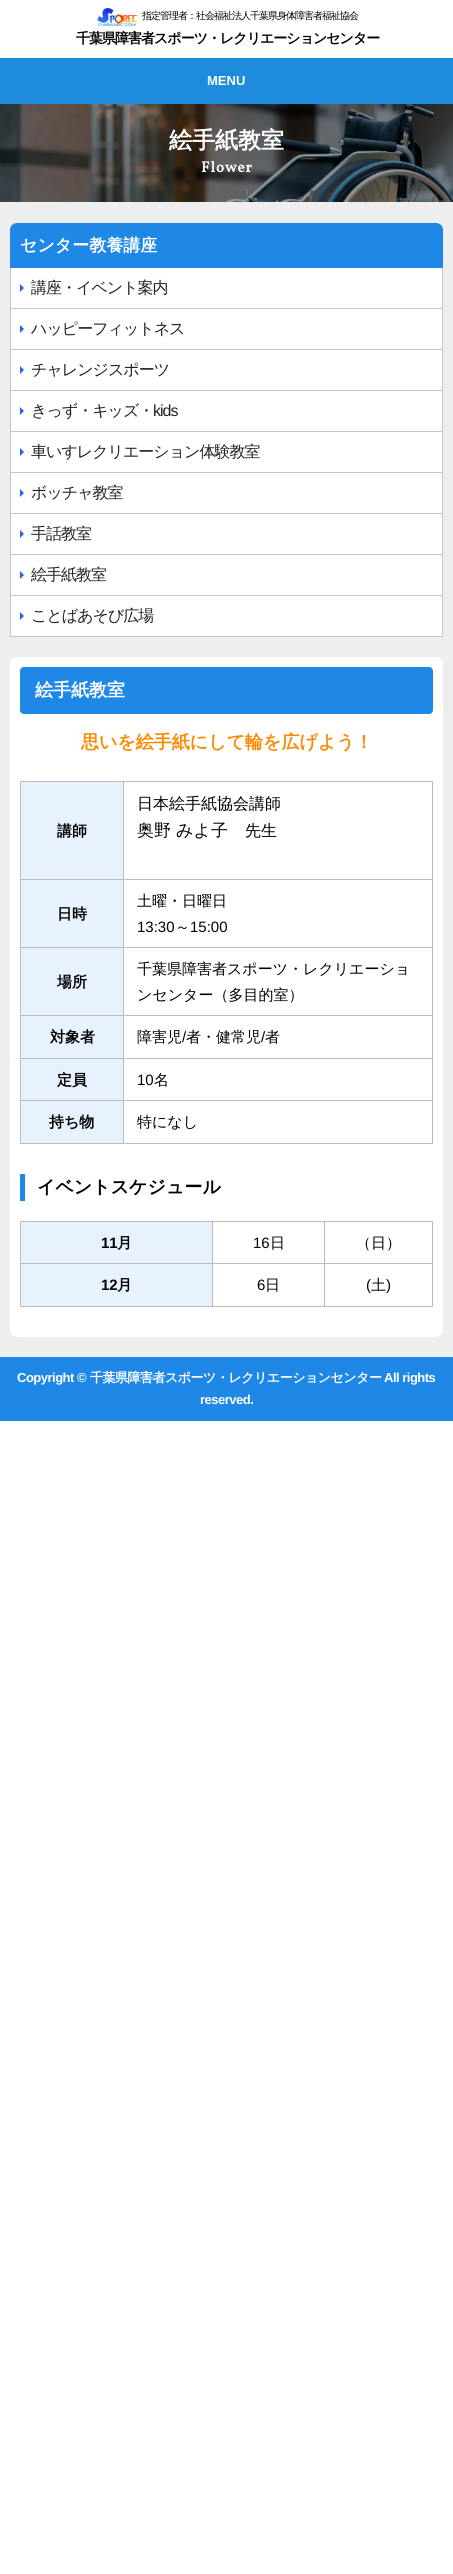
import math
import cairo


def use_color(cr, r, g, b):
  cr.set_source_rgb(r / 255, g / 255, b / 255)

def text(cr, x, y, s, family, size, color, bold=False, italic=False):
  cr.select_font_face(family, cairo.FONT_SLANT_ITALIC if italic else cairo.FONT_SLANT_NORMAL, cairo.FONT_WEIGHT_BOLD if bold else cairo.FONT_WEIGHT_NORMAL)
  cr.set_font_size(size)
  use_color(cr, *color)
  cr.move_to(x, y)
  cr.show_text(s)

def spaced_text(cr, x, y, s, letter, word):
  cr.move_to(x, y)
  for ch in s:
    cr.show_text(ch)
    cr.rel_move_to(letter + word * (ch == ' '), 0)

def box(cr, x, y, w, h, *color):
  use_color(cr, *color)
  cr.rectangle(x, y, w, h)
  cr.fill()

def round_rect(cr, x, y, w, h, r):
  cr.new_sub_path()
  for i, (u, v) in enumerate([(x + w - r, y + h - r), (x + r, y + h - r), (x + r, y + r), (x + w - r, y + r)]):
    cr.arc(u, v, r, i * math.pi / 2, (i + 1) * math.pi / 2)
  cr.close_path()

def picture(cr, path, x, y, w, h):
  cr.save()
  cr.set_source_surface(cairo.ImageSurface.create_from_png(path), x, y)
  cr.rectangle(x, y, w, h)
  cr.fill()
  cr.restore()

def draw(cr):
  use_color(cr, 255, 255, 255)
  cr.paint()
  picture(cr, "img_01.png", 97, 8, 40, 18)
  box(cr, 0, 58, 453, 46, 31, 139, 220)
  picture(cr, "img_02.png", 0, 104, 453, 98)
  box(cr, 0, 202, 453, 1155, 238, 238, 238)
  use_color(cr, 31, 136, 231)
  cr.new_path()
  cr.move_to(17, 223)
  cr.line_to(436, 223)
  cr.curve_to(440, 223, 443, 226, 443, 230)
  cr.line_to(443, 268)
  cr.line_to(10, 268)
  cr.line_to(10, 230)
  cr.curve_to(10, 226, 13, 223, 17, 223)
  cr.close_path()
  cr.fill()
  box(cr, 442, 268, 1, 40, 197, 197, 197)
  box(cr, 10, 268, 1, 40, 197, 197, 197)
  box(cr, 11, 268, 431, 40, 255, 255, 255)
  use_color(cr, 39, 103, 222)
  cr.new_path()
  cr.move_to(20, 292)
  cr.line_to(20, 284)
  cr.line_to(24, 288)
  cr.close_path()
  cr.fill()
  box(cr, 10, 308, 433, 1, 197, 197, 197)
  box(cr, 442, 308, 1, 41, 197, 197, 197)
  box(cr, 10, 308, 1, 41, 197, 197, 197)
  box(cr, 11, 309, 431, 40, 255, 255, 255)
  use_color(cr, 39, 103, 222)
  cr.new_path()
  cr.move_to(20, 333)
  cr.line_to(20, 325)
  cr.line_to(24, 329)
  cr.close_path()
  cr.fill()
  box(cr, 10, 349, 433, 1, 197, 197, 197)
  box(cr, 442, 349, 1, 41, 197, 197, 197)
  box(cr, 10, 349, 1, 41, 197, 197, 197)
  box(cr, 11, 350, 431, 40, 255, 255, 255)
  use_color(cr, 39, 103, 222)
  cr.new_path()
  cr.move_to(20, 374)
  cr.line_to(20, 366)
  cr.line_to(24, 370)
  cr.close_path()
  cr.fill()
  box(cr, 10, 390, 433, 1, 197, 197, 197)
  box(cr, 442, 390, 1, 41, 197, 197, 197)
  box(cr, 10, 390, 1, 41, 197, 197, 197)
  box(cr, 11, 391, 431, 40, 255, 255, 255)
  use_color(cr, 39, 103, 222)
  cr.new_path()
  cr.move_to(20, 415)
  cr.line_to(20, 407)
  cr.line_to(24, 411)
  cr.close_path()
  cr.fill()
  box(cr, 10, 431, 433, 1, 197, 197, 197)
  box(cr, 442, 431, 1, 41, 197, 197, 197)
  box(cr, 10, 431, 1, 41, 197, 197, 197)
  box(cr, 11, 432, 431, 40, 255, 255, 255)
  use_color(cr, 39, 103, 222)
  cr.new_path()
  cr.move_to(20, 456)
  cr.line_to(20, 448)
  cr.line_to(24, 452)
  cr.close_path()
  cr.fill()
  box(cr, 10, 472, 433, 1, 197, 197, 197)
  box(cr, 442, 472, 1, 41, 197, 197, 197)
  box(cr, 10, 472, 1, 41, 197, 197, 197)
  box(cr, 11, 473, 431, 40, 255, 255, 255)
  use_color(cr, 39, 103, 222)
  cr.new_path()
  cr.move_to(20, 497)
  cr.line_to(20, 489)
  cr.line_to(24, 493)
  cr.close_path()
  cr.fill()
  box(cr, 10, 513, 433, 1, 197, 197, 197)
  box(cr, 442, 513, 1, 41, 197, 197, 197)
  box(cr, 10, 513, 1, 41, 197, 197, 197)
  box(cr, 11, 514, 431, 40, 255, 255, 255)
  use_color(cr, 39, 103, 222)
  cr.new_path()
  cr.move_to(20, 538)
  cr.line_to(20, 530)
  cr.line_to(24, 534)
  cr.close_path()
  cr.fill()
  box(cr, 10, 554, 433, 1, 197, 197, 197)
  box(cr, 442, 554, 1, 41, 197, 197, 197)
  box(cr, 10, 554, 1, 41, 197, 197, 197)
  box(cr, 11, 555, 431, 40, 255, 255, 255)
  use_color(cr, 39, 103, 222)
  cr.new_path()
  cr.move_to(20, 579)
  cr.line_to(20, 571)
  cr.line_to(24, 575)
  cr.close_path()
  cr.fill()
  cr.rectangle(10.5, 595.5, 432, 41)
  use_color(cr, 197, 197, 197)
  cr.set_line_width(1)
  cr.stroke()
  box(cr, 11, 596, 431, 40, 255, 255, 255)
  use_color(cr, 39, 103, 222)
  cr.new_path()
  cr.move_to(20, 620)
  cr.line_to(20, 612)
  cr.line_to(24, 616)
  cr.close_path()
  cr.fill()
  use_color(cr, 255, 255, 255)
  round_rect(cr, 10, 657, 433, 680, 7)
  cr.fill()
  use_color(cr, 31, 136, 231)
  round_rect(cr, 20, 667, 413, 47, 4)
  cr.fill()
  box(cr, 20, 781, 413, 1, 187, 187, 187)
  box(cr, 20, 781, 1, 363, 187, 187, 187)
  box(cr, 21, 782, 102, 97, 232, 242, 255)
  box(cr, 123, 782, 1, 362, 187, 187, 187)
  box(cr, 21, 879, 103, 1, 187, 187, 187)
  box(cr, 432, 782, 1, 362, 187, 187, 187)
  box(cr, 124, 879, 309, 1, 187, 187, 187)
  box(cr, 21, 880, 102, 67, 232, 242, 255)
  box(cr, 21, 947, 412, 1, 187, 187, 187)
  box(cr, 21, 948, 102, 67, 232, 242, 255)
  box(cr, 21, 1015, 412, 1, 187, 187, 187)
  box(cr, 21, 1016, 102, 42, 232, 242, 255)
  box(cr, 21, 1058, 412, 1, 187, 187, 187)
  box(cr, 21, 1059, 102, 41, 232, 242, 255)
  box(cr, 21, 1100, 412, 1, 187, 187, 187)
  box(cr, 21, 1101, 102, 42, 232, 242, 255)
  box(cr, 21, 1143, 412, 1, 187, 187, 187)
  box(cr, 20, 1174, 5, 27, 31, 136, 231)
  box(cr, 20, 1221, 413, 1, 187, 187, 187)
  box(cr, 20, 1221, 1, 86, 187, 187, 187)
  box(cr, 21, 1222, 191, 41, 232, 242, 255)
  box(cr, 212, 1222, 1, 85, 187, 187, 187)
  box(cr, 21, 1263, 192, 1, 187, 187, 187)
  box(cr, 324, 1222, 1, 85, 187, 187, 187)
  box(cr, 213, 1263, 112, 1, 187, 187, 187)
  box(cr, 432, 1222, 1, 85, 187, 187, 187)
  box(cr, 325, 1263, 108, 1, 187, 187, 187)
  box(cr, 21, 1264, 191, 42, 232, 242, 255)
  box(cr, 21, 1306, 412, 1, 187, 187, 187)
  box(cr, 0, 1357, 453, 64, 31, 136, 231)
  cr.select_font_face("WenQuanYi Zen Hei Medium")
  cr.set_font_size(10)
  use_color(cr, 0, 0, 0)
  spaced_text(cr, 142, 19, "指定管理者：社会福祉法人千葉県身体障害者福祉協会", -1, 0)
  cr.select_font_face("WenQuanYi Zen Hei", cairo.FONT_SLANT_NORMAL, cairo.FONT_WEIGHT_BOLD)
  cr.set_font_size(14)
  spaced_text(cr, 76, 43, "千葉県障害者スポーツ・レクリエーションセンター", -1, 0)
  text(cr, 207, 85, "MENU", "Liberation Sans", 13, (255, 255, 255), bold=True)
  text(cr, 169, 148, "絵手紙教室", "WenQuanYi Zen Hei", 23, (255, 255, 255), bold=True)
  cr.select_font_face("Vollkorn", cairo.FONT_SLANT_NORMAL, cairo.FONT_WEIGHT_BOLD)
  cr.set_font_size(15)
  spaced_text(cr, 201, 172, "Flower", 1, 0)
  text(cr, 20, 251, "センター教養講座", "WenQuanYi Zen Hei", 17, (255, 255, 255), bold=True)
  cr.select_font_face("WenQuanYi Zen Hei Medium")
  cr.set_font_size(16)
  use_color(cr, 34, 34, 34)
  spaced_text(cr, 31, 293, "講座・イベント案内", -1, 0)
  spaced_text(cr, 31, 334, "ハッピーフィットネス", -1, 0)
  spaced_text(cr, 31, 375, "チャレンジスポーツ", -1, 0)
  spaced_text(cr, 31, 416, "きっず・キッズ・", -1, 0)
  cr.select_font_face("Liberation Sans")
  spaced_text(cr, 153, 416, "kids", -1, 0)
  cr.select_font_face("WenQuanYi Zen Hei Medium")
  spaced_text(cr, 31, 457, "車いすレクリエーション体験教室", -1, 0)
  spaced_text(cr, 31, 498, "ボッチャ教室", -1, 0)
  spaced_text(cr, 31, 539, "手話教室", -1, 0)
  spaced_text(cr, 31, 580, "絵手紙教室", -1, 0)
  spaced_text(cr, 31, 621, "ことばあそび広場", -1, 0)
  text(cr, 35, 696, "絵手紙教室", "WenQuanYi Zen Hei", 18, (255, 255, 255), bold=True)
  text(cr, 81, 748, "思いを絵手紙にして輪を広げよう！", "WenQuanYi Zen Hei", 18, (254, 137, 0), bold=True)
  text(cr, 57, 836, "講師", "WenQuanYi Zen Hei", 15, (0, 0, 0), bold=True)
  text(cr, 137, 809, "日本絵手紙協会講師", "WenQuanYi Zen Hei Medium", 16, (0, 0, 0))
  text(cr, 137, 836, "奥野 みよ子", "WenQuanYi Zen Hei Medium", 17, (0, 0, 0))
  text(cr, 245, 836, "先生", "WenQuanYi Zen Hei Medium", 16, (0, 0, 0))
  text(cr, 57, 919, "日時", "WenQuanYi Zen Hei", 15, (0, 0, 0), bold=True)
  text(cr, 137, 906, "土曜・日曜日", "WenQuanYi Zen Hei Medium", 15, (0, 0, 0))
  text(cr, 137, 932, "13:30", "Liberation Sans", 15, (0, 0, 0))
  text(cr, 175, 932, "～", "WenQuanYi Zen Hei Medium", 15, (0, 0, 0))
  text(cr, 190, 932, "15:00", "Liberation Sans", 15, (0, 0, 0))
  text(cr, 57, 987, "場所", "WenQuanYi Zen Hei", 15, (0, 0, 0), bold=True)
  text(cr, 137, 974, "千葉県障害者スポーツ・レクリエーショ", "WenQuanYi Zen Hei Medium", 15, (0, 0, 0))
  text(cr, 137, 1000, "ンセンター（多目的室）", "WenQuanYi Zen Hei Medium", 15, (0, 0, 0))
  text(cr, 50, 1042, "対象者", "WenQuanYi Zen Hei", 15, (0, 0, 0), bold=True)
  text(cr, 137, 1042, "障害児", "WenQuanYi Zen Hei Medium", 15, (0, 0, 0))
  text(cr, 182, 1042, "/", "Liberation Sans", 15, (0, 0, 0))
  text(cr, 186, 1042, "者・健常児", "WenQuanYi Zen Hei Medium", 15, (0, 0, 0))
  text(cr, 261, 1042, "/", "Liberation Sans", 15, (0, 0, 0))
  text(cr, 265, 1042, "者", "WenQuanYi Zen Hei Medium", 15, (0, 0, 0))
  text(cr, 57, 1085, "定員", "WenQuanYi Zen Hei", 15, (0, 0, 0), bold=True)
  text(cr, 137, 1085, "10", "Liberation Sans", 15, (0, 0, 0))
  text(cr, 154, 1085, "名", "WenQuanYi Zen Hei Medium", 15, (0, 0, 0))
  text(cr, 49, 1127, "持ち物", "WenQuanYi Zen Hei", 15, (0, 0, 0), bold=True)
  text(cr, 137, 1127, "特になし", "WenQuanYi Zen Hei Medium", 15, (0, 0, 0))
  text(cr, 37, 1193, "イベントスケジュール", "WenQuanYi Zen Hei", 18, (0, 0, 0), bold=True)
  text(cr, 101, 1248, "11", "Liberation Sans", 15, (0, 0, 0), bold=True)
  text(cr, 117, 1248, "月", "WenQuanYi Zen Hei", 15, (0, 0, 0), bold=True)
  text(cr, 253, 1248, "16", "Liberation Sans", 15, (0, 0, 0))
  text(cr, 270, 1248, "日", "WenQuanYi Zen Hei Medium", 15, (0, 0, 0))
  text(cr, 356, 1248, "（日）", "WenQuanYi Zen Hei Medium", 15, (0, 0, 0))
  text(cr, 101, 1290, "12", "Liberation Sans", 15, (0, 0, 0), bold=True)
  text(cr, 117, 1290, "月", "WenQuanYi Zen Hei", 15, (0, 0, 0), bold=True)
  text(cr, 257, 1290, "6", "Liberation Sans", 15, (0, 0, 0))
  text(cr, 265, 1290, "日", "WenQuanYi Zen Hei Medium", 15, (0, 0, 0))
  text(cr, 366, 1290, "(", "Liberation Sans", 15, (0, 0, 0))
  text(cr, 371, 1290, "土", "WenQuanYi Zen Hei Medium", 15, (0, 0, 0))
  text(cr, 386, 1290, ")", "Liberation Sans", 15, (0, 0, 0))
  cr.select_font_face("Liberation Sans", cairo.FONT_SLANT_NORMAL, cairo.FONT_WEIGHT_BOLD)
  cr.set_font_size(13)
  use_color(cr, 255, 255, 255)
  spaced_text(cr, 17, 1382, "Copyright ©", -0.5, 0)
  cr.select_font_face("WenQuanYi Zen Hei", cairo.FONT_SLANT_NORMAL, cairo.FONT_WEIGHT_BOLD)
  spaced_text(cr, 90, 1382, "千葉県障害者スポーツ・レクリエーションセンター", -0.5, 0)
  cr.select_font_face("Liberation Sans", cairo.FONT_SLANT_NORMAL, cairo.FONT_WEIGHT_BOLD)
  spaced_text(cr, 384, 1382, "All rights", -0.5, 0)
  spaced_text(cr, 200, 1404, "reserved.", -0.5, 0)


surface = cairo.ImageSurface(cairo.FORMAT_RGB24, 453, 2574)
cr = cairo.Context(surface)
options = cairo.FontOptions()
options.set_hint_metrics(cairo.HINT_METRICS_OFF)
options.set_hint_style(cairo.HINT_STYLE_NONE)
cr.set_font_options(options)
cr.set_miter_limit(4)
draw(cr)
surface.write_to_png("out.png")
